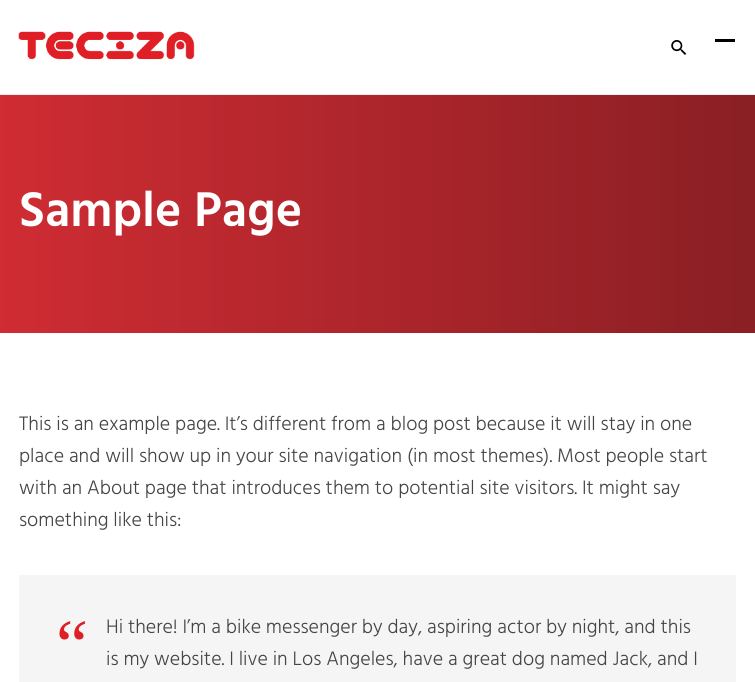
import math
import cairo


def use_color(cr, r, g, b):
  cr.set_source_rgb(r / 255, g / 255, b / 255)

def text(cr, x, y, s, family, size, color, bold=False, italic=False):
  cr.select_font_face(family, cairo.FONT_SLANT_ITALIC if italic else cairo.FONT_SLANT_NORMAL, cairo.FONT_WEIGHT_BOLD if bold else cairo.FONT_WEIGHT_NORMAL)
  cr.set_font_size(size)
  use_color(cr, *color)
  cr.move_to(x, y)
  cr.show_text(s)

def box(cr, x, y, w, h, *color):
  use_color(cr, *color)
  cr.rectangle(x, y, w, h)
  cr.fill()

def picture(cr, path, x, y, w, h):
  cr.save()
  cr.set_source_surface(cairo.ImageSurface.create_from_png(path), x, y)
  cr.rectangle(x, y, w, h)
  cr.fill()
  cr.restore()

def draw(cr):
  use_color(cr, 255, 255, 255)
  cr.paint()
  box(cr, 0, 94, 755, 1, 238, 238, 238)
  picture(cr, "img_01.png", 18, 31, 177, 29)
  picture(cr, "img_02.png", 671, 40, 16, 15)
  box(cr, 715, 39, 20, 3, 0, 0, 0)
  gradient = cairo.LinearGradient(0, 214, 755, 214)
  gradient.add_color_stop_rgba(0, 0.812, 0.173, 0.2, 1)
  gradient.add_color_stop_rgba(1, 0.541, 0.122, 0.141, 1)
  cr.set_source(gradient)
  cr.rectangle(0, 95, 755, 238)
  cr.fill()
  box(cr, 19, 575, 717, 107, 245, 245, 245)
  text(cr, 19, 226, "Sample Page", "Hind SemiBold", 50, (255, 255, 255))
  text(cr, 19, 430, "This is an example page. It’s different from a blog post because it will stay in one", "Hind Light", 20, (69, 69, 69))
  text(cr, 19, 462, "place and will show up in your site navigation (in most themes). Most people start", "Hind Light", 20, (69, 69, 69))
  text(cr, 19, 494, "with an About page that introduces them to potential site visitors. It might say", "Hind Light", 20, (69, 69, 69))
  text(cr, 19, 526, "something like this:", "Hind Light", 20, (69, 69, 69))
  text(cr, 56, 669, "“", "Liberation Serif", 72, (224, 30, 38))
  text(cr, 106, 633, "Hi there! I’m a bike messenger by day, aspiring actor by night, and this", "Hind Light", 20, (69, 69, 69))
  text(cr, 106, 665, "is my website. I live in Los Angeles, have a great dog named Jack, and I", "Hind Light", 20, (69, 69, 69))


surface = cairo.ImageSurface(cairo.FORMAT_RGB24, 755, 682)
cr = cairo.Context(surface)
options = cairo.FontOptions()
options.set_hint_metrics(cairo.HINT_METRICS_OFF)
options.set_hint_style(cairo.HINT_STYLE_NONE)
cr.set_font_options(options)
cr.set_miter_limit(4)
draw(cr)
surface.write_to_png("out.png")
